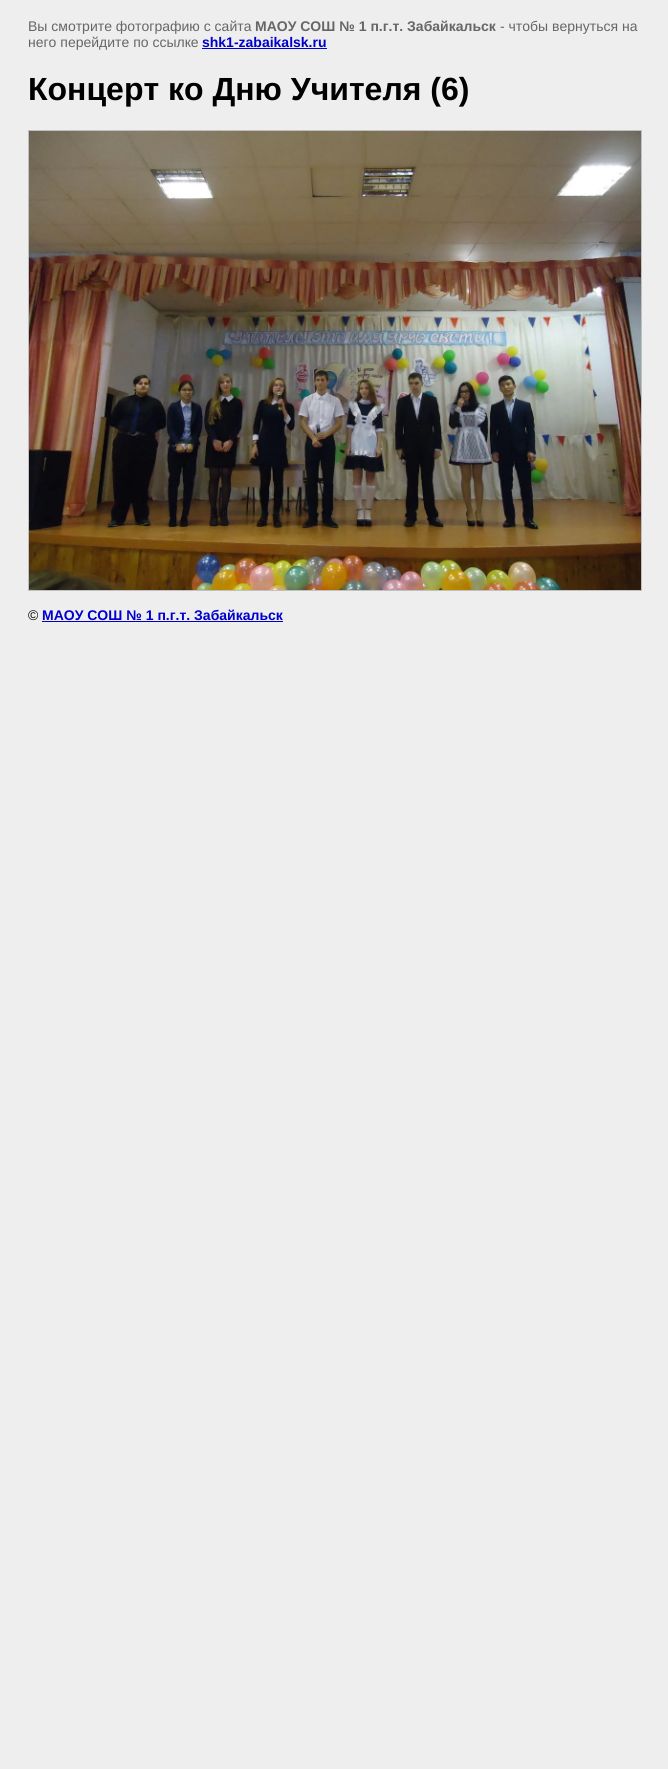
import math
import cairo


def use_color(cr, r, g, b):
  cr.set_source_rgb(r / 255, g / 255, b / 255)

def text(cr, x, y, s, family, size, color, bold=False, italic=False):
  cr.select_font_face(family, cairo.FONT_SLANT_ITALIC if italic else cairo.FONT_SLANT_NORMAL, cairo.FONT_WEIGHT_BOLD if bold else cairo.FONT_WEIGHT_NORMAL)
  cr.set_font_size(size)
  use_color(cr, *color)
  cr.move_to(x, y)
  cr.show_text(s)

def box(cr, x, y, w, h, *color):
  use_color(cr, *color)
  cr.rectangle(x, y, w, h)
  cr.fill()

def picture(cr, path, x, y, w, h):
  cr.save()
  cr.set_source_surface(cairo.ImageSurface.create_from_png(path), x, y)
  cr.rectangle(x, y, w, h)
  cr.fill()
  cr.restore()

def draw(cr):
  use_color(cr, 238, 238, 238)
  cr.paint()
  box(cr, 202, 48, 125, 1, 0, 0, 204)
  cr.rectangle(28.5, 130.5, 613, 460)
  use_color(cr, 192, 192, 192)
  cr.set_line_width(1)
  cr.stroke()
  picture(cr, "img_01.png", 29, 131, 612, 459)
  box(cr, 42, 621, 241, 1, 0, 0, 204)
  text(cr, 28, 31, "Вы смотрите фотографию с сайта", "Liberation Sans", 14, (102, 102, 102))
  text(cr, 255, 31, "МАОУ СОШ № 1 п.г.т. Забайкальск", "Liberation Sans", 14, (102, 102, 102), bold=True)
  text(cr, 500, 31, "- чтобы вернуться на", "Liberation Sans", 14, (102, 102, 102))
  text(cr, 28, 47, "него перейдите по ссылке", "Liberation Sans", 14, (102, 102, 102))
  text(cr, 202, 47, "shk1-zabaikalsk.ru", "Liberation Sans", 14, (0, 0, 204), bold=True)
  text(cr, 28, 100, "Концерт ко Дню Учителя (6)", "Liberation Sans", 32, (0, 0, 0), bold=True)
  text(cr, 28, 620, "©", "Liberation Sans", 14, (0, 0, 0))
  text(cr, 42, 620, "МАОУ СОШ № 1 п.г.т. Забайкальск", "Liberation Sans", 14, (0, 0, 204), bold=True)


surface = cairo.ImageSurface(cairo.FORMAT_RGB24, 668, 1769)
cr = cairo.Context(surface)
options = cairo.FontOptions()
options.set_hint_metrics(cairo.HINT_METRICS_OFF)
options.set_hint_style(cairo.HINT_STYLE_NONE)
cr.set_font_options(options)
cr.set_miter_limit(4)
draw(cr)
surface.write_to_png("out.png")
